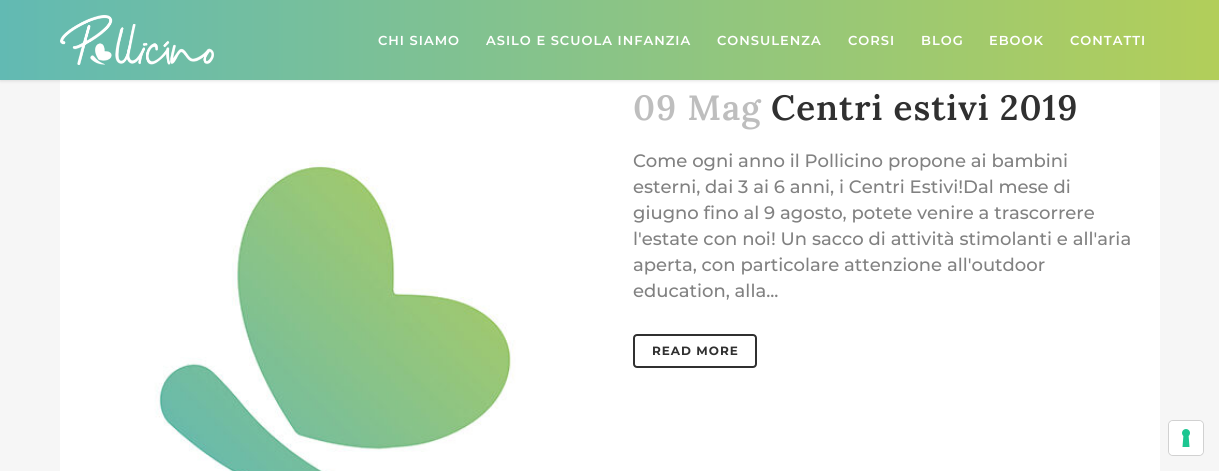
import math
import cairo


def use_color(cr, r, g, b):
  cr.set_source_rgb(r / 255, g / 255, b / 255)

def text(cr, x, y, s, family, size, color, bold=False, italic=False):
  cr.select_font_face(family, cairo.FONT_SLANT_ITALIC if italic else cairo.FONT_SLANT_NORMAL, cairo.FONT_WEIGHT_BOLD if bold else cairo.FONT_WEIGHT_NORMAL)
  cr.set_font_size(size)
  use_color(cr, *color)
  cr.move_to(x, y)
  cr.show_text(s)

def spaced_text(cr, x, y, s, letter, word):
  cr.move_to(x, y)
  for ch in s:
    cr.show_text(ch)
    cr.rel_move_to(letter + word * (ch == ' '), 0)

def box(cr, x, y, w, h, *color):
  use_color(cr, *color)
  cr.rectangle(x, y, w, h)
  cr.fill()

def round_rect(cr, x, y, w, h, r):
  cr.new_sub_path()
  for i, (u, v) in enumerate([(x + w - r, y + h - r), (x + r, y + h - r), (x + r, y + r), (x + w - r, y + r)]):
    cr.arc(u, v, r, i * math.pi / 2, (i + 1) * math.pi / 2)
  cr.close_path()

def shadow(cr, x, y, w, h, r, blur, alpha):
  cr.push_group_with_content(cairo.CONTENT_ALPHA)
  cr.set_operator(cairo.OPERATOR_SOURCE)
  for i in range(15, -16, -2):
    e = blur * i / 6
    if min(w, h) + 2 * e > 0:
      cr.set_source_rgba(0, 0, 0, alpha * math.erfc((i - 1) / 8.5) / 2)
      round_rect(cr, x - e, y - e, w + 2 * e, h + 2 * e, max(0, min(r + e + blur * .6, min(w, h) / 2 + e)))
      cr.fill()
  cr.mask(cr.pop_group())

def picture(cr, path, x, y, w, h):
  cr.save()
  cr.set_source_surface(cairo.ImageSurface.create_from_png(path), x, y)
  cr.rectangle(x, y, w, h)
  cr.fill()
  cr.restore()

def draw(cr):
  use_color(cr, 246, 246, 246)
  cr.paint()
  picture(cr, "img_02.png", 60, 80, 550, 391)
  box(cr, 610, 80, 550, 391, 255, 255, 255)
  use_color(cr, 0, 0, 0)
  shadow(cr, 0, 1, 1219, 80, 0, 1.5, 0.11)
  gradient = cairo.LinearGradient(0, 40, 1219, 40)
  gradient.add_color_stop_rgba(0, 0.384, 0.729, 0.702, 1)
  gradient.add_color_stop_rgba(1, 0.698, 0.808, 0.353, 1)
  cr.set_source(gradient)
  cr.rectangle(0, 0, 1219, 80)
  cr.fill()
  picture(cr, "img_01.png", 60, 15, 154, 50)
  round_rect(cr, 634, 335, 122, 32, 3)
  use_color(cr, 48, 48, 48)
  cr.stroke()
  round_rect(cr, 1168.5, 420.5, 35, 35, 4.5)
  use_color(cr, 209, 209, 209)
  cr.set_line_width(1)
  cr.stroke()
  use_color(cr, 255, 255, 255)
  round_rect(cr, 1169, 421, 34, 34, 4)
  cr.fill()
  picture(cr, "img_03.png", 1182, 429, 8, 18)
  cr.select_font_face("Montserrat SemiBold")
  cr.set_font_size(13)
  spaced_text(cr, 378, 45, "CHI SIAMO", 1, 0)
  spaced_text(cr, 486, 45, "ASILO E SCUOLA INFANZIA", 1, 0)
  spaced_text(cr, 717, 45, "CONSULENZA", 1, 0)
  spaced_text(cr, 848, 45, "CORSI", 1, 0)
  spaced_text(cr, 921, 45, "BLOG", 1, 0)
  spaced_text(cr, 989, 45, "EBOOK", 1, 0)
  spaced_text(cr, 1070, 45, "CONTATTI", 1, 0)
  cr.select_font_face("Lora SemiBold")
  cr.set_font_size(35)
  use_color(cr, 190, 190, 190)
  spaced_text(cr, 633, 120, "09 Mag", 1, 0)
  use_color(cr, 48, 48, 48)
  spaced_text(cr, 771, 120, "Centri estivi 2019", 1, 0)
  text(cr, 633, 167, "Come ogni anno il Pollicino propone ai bambini", "Montserrat Medium", 18, (129, 129, 129))
  text(cr, 633, 193, "esterni, dai 3 ai 6 anni, i Centri Estivi!Dal mese di", "Montserrat Medium", 18, (129, 129, 129))
  text(cr, 633, 219, "giugno fino al 9 agosto, potete venire a trascorrere", "Montserrat Medium", 18, (129, 129, 129))
  text(cr, 633, 245, "l'estate con noi! Un sacco di attività stimolanti e all'aria", "Montserrat Medium", 18, (129, 129, 129))
  text(cr, 633, 271, "aperta, con particolare attenzione all'outdoor", "Montserrat Medium", 18, (129, 129, 129))
  text(cr, 633, 297, "education, alla...", "Montserrat Medium", 18, (129, 129, 129))
  cr.select_font_face("Montserrat", cairo.FONT_SLANT_NORMAL, cairo.FONT_WEIGHT_BOLD)
  cr.set_font_size(12)
  use_color(cr, 48, 48, 48)
  spaced_text(cr, 652, 355, "READ MORE", 1, 0)


surface = cairo.ImageSurface(cairo.FORMAT_RGB24, 1219, 471)
cr = cairo.Context(surface)
options = cairo.FontOptions()
options.set_hint_metrics(cairo.HINT_METRICS_OFF)
options.set_hint_style(cairo.HINT_STYLE_NONE)
cr.set_font_options(options)
cr.set_miter_limit(4)
draw(cr)
surface.write_to_png("out.png")
